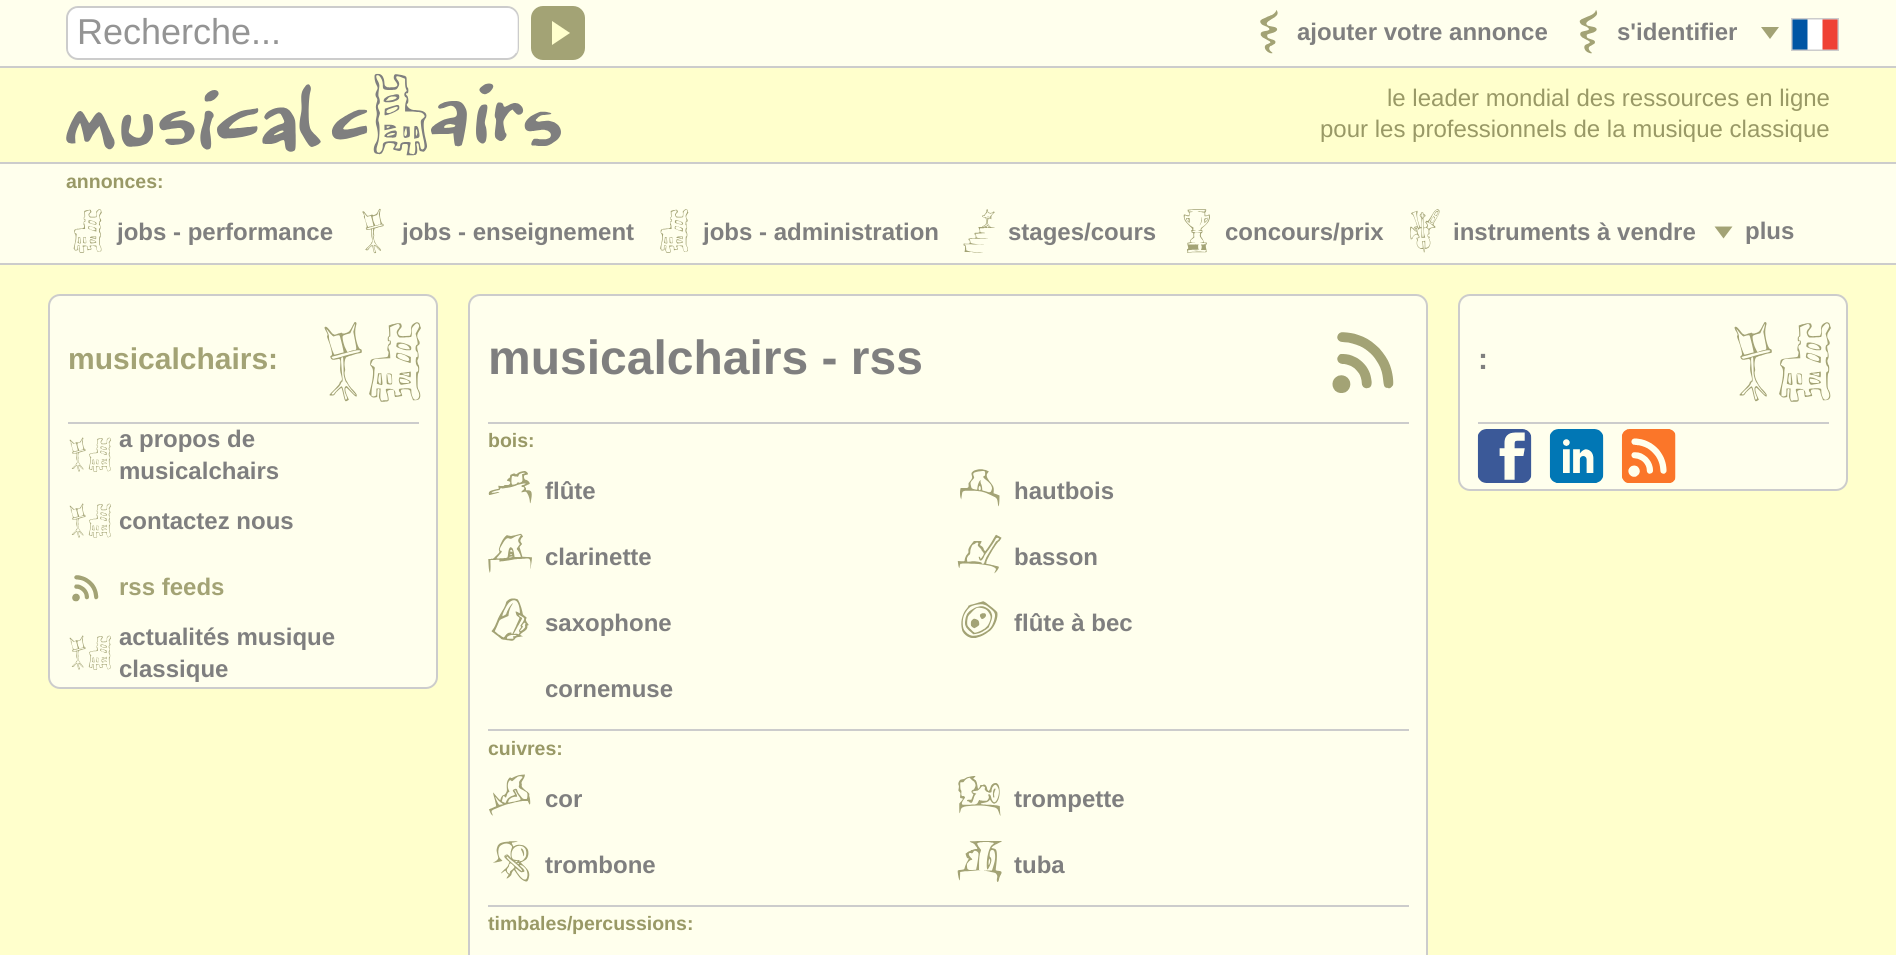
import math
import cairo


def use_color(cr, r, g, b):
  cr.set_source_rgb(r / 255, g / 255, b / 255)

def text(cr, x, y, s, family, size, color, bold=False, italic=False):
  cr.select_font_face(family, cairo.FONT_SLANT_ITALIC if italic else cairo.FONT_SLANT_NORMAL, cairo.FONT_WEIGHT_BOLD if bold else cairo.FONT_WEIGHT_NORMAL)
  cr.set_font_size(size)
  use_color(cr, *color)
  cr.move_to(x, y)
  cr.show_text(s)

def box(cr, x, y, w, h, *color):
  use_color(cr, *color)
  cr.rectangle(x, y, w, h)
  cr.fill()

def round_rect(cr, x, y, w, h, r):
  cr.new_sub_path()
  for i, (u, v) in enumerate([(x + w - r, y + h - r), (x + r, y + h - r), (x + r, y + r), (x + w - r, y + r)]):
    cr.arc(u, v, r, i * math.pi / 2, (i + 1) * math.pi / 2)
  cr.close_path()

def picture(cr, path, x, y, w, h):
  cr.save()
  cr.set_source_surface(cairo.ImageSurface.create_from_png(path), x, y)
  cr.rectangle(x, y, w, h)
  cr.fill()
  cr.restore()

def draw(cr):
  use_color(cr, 255, 255, 204)
  cr.paint()
  box(cr, 0, 0, 1896, 66, 255, 255, 237)
  box(cr, 0, 66, 1896, 2, 204, 204, 204)
  use_color(cr, 255, 255, 255)
  round_rect(cr, 67, 7, 451, 52, 11)
  cr.fill_preserve()
  use_color(cr, 204, 204, 204)
  cr.stroke()
  cr.save()
  round_rect(cr, 68, 8, 450, 51, 11)
  cr.clip()
  cr.set_source_rgba(1, 1, 1, 0.7)
  cr.new_path()
  cr.move_to(79, 8)
  cr.line_to(507, 8)
  cr.curve_to(513, 8, 518, 13, 518, 19)
  cr.line_to(518, 53)
  cr.line_to(68, 53)
  cr.line_to(68, 19)
  cr.curve_to(68, 13, 73, 8, 79, 8)
  cr.close_path()
  cr.fill()
  cr.restore()
  use_color(cr, 163, 163, 117)
  round_rect(cr, 531, 6, 54, 54, 12)
  cr.fill()
  use_color(cr, 255, 255, 204)
  cr.new_path()
  cr.move_to(552, 45)
  cr.line_to(552, 21)
  cr.line_to(570, 33)
  cr.close_path()
  cr.fill()
  picture(cr, "img_01.png", 1260, 10, 18, 44)
  picture(cr, "img_02.png", 1579, 10, 19, 44)
  use_color(cr, 163, 163, 117)
  cr.new_path()
  cr.move_to(1761, 27)
  cr.line_to(1779, 27)
  cr.line_to(1770, 39)
  cr.close_path()
  cr.fill()
  cr.rectangle(1792, 19, 46, 31)
  use_color(cr, 204, 204, 204)
  cr.stroke()
  picture(cr, "img_03.png", 1792, 19, 46, 31)
  picture(cr, "img_04.png", 66, 73, 495, 83)
  box(cr, 0, 164, 1896, 99, 255, 255, 237)
  box(cr, 0, 162, 1896, 2, 204, 204, 204)
  box(cr, 0, 263, 1896, 2, 204, 204, 204)
  picture(cr, "img_05.png", 73, 209, 29, 44)
  picture(cr, "img_06.png", 362, 208, 22, 46)
  picture(cr, "img_07.png", 660, 209, 29, 44)
  picture(cr, "img_08.png", 963, 209, 32, 44)
  picture(cr, "img_09.png", 1183, 209, 27, 44)
  picture(cr, "img_10.png", 1410, 209, 30, 44)
  use_color(cr, 163, 163, 117)
  cr.new_path()
  cr.move_to(1714.5, 226.5)
  cr.line_to(1732.5, 226.5)
  cr.line_to(1723.5, 238.5)
  cr.close_path()
  cr.fill()
  use_color(cr, 255, 255, 237)
  round_rect(cr, 49, 295, 388, 393, 11)
  cr.fill_preserve()
  use_color(cr, 204, 204, 204)
  cr.stroke()
  picture(cr, "img_11.png", 324, 322, 97, 80)
  box(cr, 68, 422, 351, 2, 204, 204, 204)
  picture(cr, "img_12.png", 69, 437, 42, 35)
  picture(cr, "img_13.png", 69, 503, 42, 35)
  picture(cr, "img_14.png", 72, 575, 27, 27)
  picture(cr, "img_12.png", 69, 635, 42, 35)
  use_color(cr, 255, 255, 237)
  round_rect(cr, 469, 295, 958, 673, 11)
  cr.fill_preserve()
  use_color(cr, 204, 204, 204)
  cr.stroke()
  picture(cr, "img_15.png", 1332, 332, 62, 61)
  box(cr, 488, 422, 921, 2, 204, 204, 204)
  picture(cr, "img_16.png", 488, 471, 44, 33)
  picture(cr, "img_17.png", 960, 469, 40, 38)
  picture(cr, "img_18.png", 488, 533, 44, 40)
  picture(cr, "img_19.png", 957, 534, 45, 40)
  picture(cr, "img_20.png", 491, 598, 38, 43)
  picture(cr, "img_21.png", 961, 601, 37, 37)
  box(cr, 488, 729, 921, 2, 204, 204, 204)
  picture(cr, "img_22.png", 489, 774, 42, 42)
  picture(cr, "img_23.png", 958, 776, 43, 40)
  picture(cr, "img_24.png", 493, 841, 37, 41)
  picture(cr, "img_25.png", 957, 841, 45, 41)
  box(cr, 488, 905, 921, 2, 204, 204, 204)
  use_color(cr, 255, 255, 237)
  round_rect(cr, 1459, 295, 388, 195, 11)
  cr.fill_preserve()
  use_color(cr, 204, 204, 204)
  cr.stroke()
  picture(cr, "img_26.png", 1734, 322, 97, 80)
  box(cr, 1478, 422, 351, 2, 204, 204, 204)
  picture(cr, "img_27.png", 1477, 429, 55, 54)
  picture(cr, "img_28.png", 1549, 429, 55, 54)
  picture(cr, "img_29.png", 1621, 429, 55, 54)
  text(cr, 77, 44, "Recherche...", "Liberation Sans", 36, (148, 148, 148))
  text(cr, 1297, 40, "ajouter votre annonce", "Liberation Sans", 24, (127, 127, 127), bold=True)
  text(cr, 1617, 40, "s'identifier", "Liberation Sans", 24, (127, 127, 127), bold=True)
  text(cr, 1387, 106, "le leader mondial des ressources en ligne", "Liberation Sans", 24, (153, 153, 102))
  text(cr, 1320, 137, "pour les professionnels de la musique classique", "Liberation Sans", 24, (153, 153, 102))
  text(cr, 66, 188, "annonces:", "Liberation Sans", 19.5, (153, 153, 102), bold=True)
  text(cr, 117, 240, "jobs - performance", "Liberation Sans", 24, (127, 127, 127), bold=True)
  text(cr, 402, 240, "jobs - enseignement", "Liberation Sans", 24, (127, 127, 127), bold=True)
  text(cr, 703, 240, "jobs - administration", "Liberation Sans", 24, (127, 127, 127), bold=True)
  text(cr, 1008, 240, "stages/cours", "Liberation Sans", 24, (127, 127, 127), bold=True)
  text(cr, 1225, 240, "concours/prix", "Liberation Sans", 24, (127, 127, 127), bold=True)
  text(cr, 1453, 240, "instruments à vendre", "Liberation Sans", 24, (127, 127, 127), bold=True)
  text(cr, 1745, 239, "plus", "Liberation Sans", 24, (127, 127, 127), bold=True)
  text(cr, 68, 369, "musicalchairs:", "Liberation Sans", 30, (163, 163, 117), bold=True)
  text(cr, 119, 447, "a propos de", "Liberation Sans", 24, (127, 127, 127), bold=True)
  text(cr, 119, 479, "musicalchairs", "Liberation Sans", 24, (127, 127, 127), bold=True)
  text(cr, 119, 529, "contactez nous", "Liberation Sans", 24, (127, 127, 127), bold=True)
  text(cr, 119, 595, "rss feeds", "Liberation Sans", 24, (163, 163, 117), bold=True)
  text(cr, 119, 645, "actualités musique", "Liberation Sans", 24, (127, 127, 127), bold=True)
  text(cr, 119, 677, "classique", "Liberation Sans", 24, (127, 127, 127), bold=True)
  text(cr, 488, 374, "musicalchairs - rss", "Liberation Sans", 48, (127, 127, 127), bold=True)
  text(cr, 488, 447, "bois:", "Liberation Sans", 19.5, (153, 153, 102), bold=True)
  text(cr, 545, 499, "flûte", "Liberation Sans", 24, (127, 127, 127), bold=True)
  text(cr, 1014, 499, "hautbois", "Liberation Sans", 24, (127, 127, 127), bold=True)
  text(cr, 545, 565, "clarinette", "Liberation Sans", 24, (127, 127, 127), bold=True)
  text(cr, 1014, 565, "basson", "Liberation Sans", 24, (127, 127, 127), bold=True)
  text(cr, 545, 631, "saxophone", "Liberation Sans", 24, (127, 127, 127), bold=True)
  text(cr, 1014, 631, "flûte à bec", "Liberation Sans", 24, (127, 127, 127), bold=True)
  text(cr, 545, 697, "cornemuse", "Liberation Sans", 24, (127, 127, 127), bold=True)
  text(cr, 488, 755, "cuivres:", "Liberation Sans", 19.5, (153, 153, 102), bold=True)
  text(cr, 545, 807, "cor", "Liberation Sans", 24, (127, 127, 127), bold=True)
  text(cr, 1014, 807, "trompette", "Liberation Sans", 24, (127, 127, 127), bold=True)
  text(cr, 545, 873, "trombone", "Liberation Sans", 24, (127, 127, 127), bold=True)
  text(cr, 1014, 873, "tuba", "Liberation Sans", 24, (127, 127, 127), bold=True)
  cr.save()
  cr.rectangle(488, 906, 921, 36)
  cr.clip()
  text(cr, 488, 930, "timbales/", "Liberation Sans", 19.5, (153, 153, 102), bold=True)
  cr.restore()
  text(cr, 572, 930, "percussions:", "Liberation Sans", 19.5, (153, 153, 102), bold=True)
  text(cr, 1478, 369, ":", "Liberation Sans", 30, (127, 127, 127), bold=True)


surface = cairo.ImageSurface(cairo.FORMAT_RGB24, 1896, 955)
cr = cairo.Context(surface)
options = cairo.FontOptions()
options.set_hint_metrics(cairo.HINT_METRICS_OFF)
options.set_hint_style(cairo.HINT_STYLE_NONE)
cr.set_font_options(options)
cr.set_miter_limit(4)
draw(cr)
surface.write_to_png("out.png")
